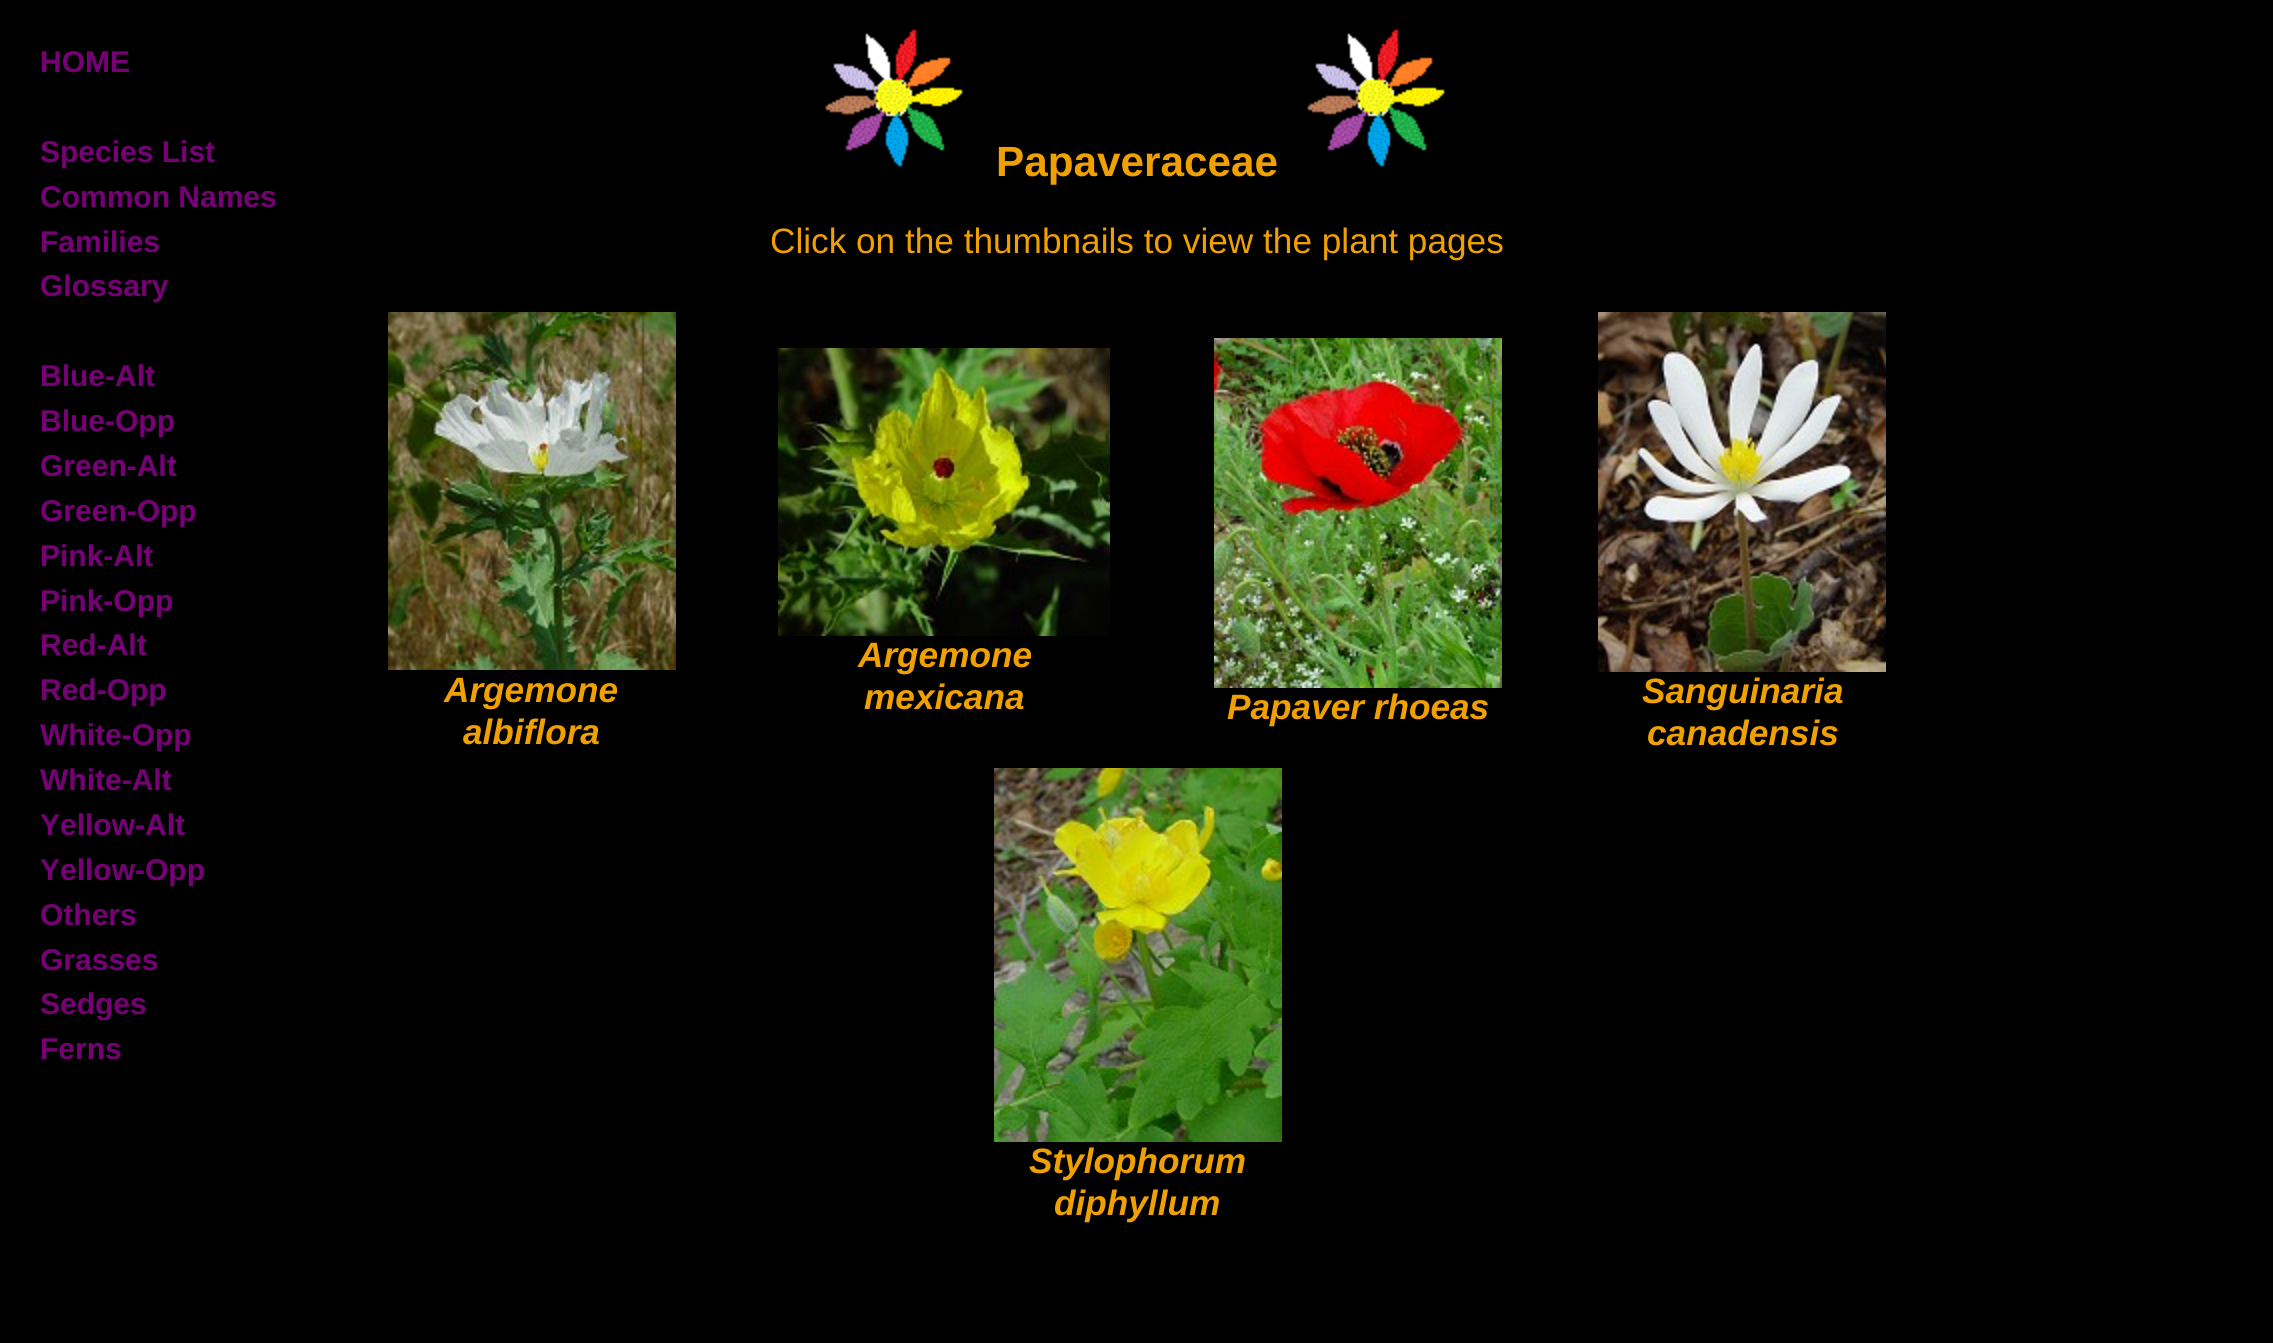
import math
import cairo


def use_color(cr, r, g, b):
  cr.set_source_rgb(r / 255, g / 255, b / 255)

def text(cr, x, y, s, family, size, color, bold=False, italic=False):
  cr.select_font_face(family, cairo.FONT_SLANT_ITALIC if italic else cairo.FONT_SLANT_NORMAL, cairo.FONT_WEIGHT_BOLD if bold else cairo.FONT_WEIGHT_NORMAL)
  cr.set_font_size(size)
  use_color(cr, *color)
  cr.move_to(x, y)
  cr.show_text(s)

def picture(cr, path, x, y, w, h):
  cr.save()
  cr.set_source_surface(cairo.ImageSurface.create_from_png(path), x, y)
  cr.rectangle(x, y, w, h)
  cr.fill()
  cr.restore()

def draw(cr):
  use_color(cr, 0, 0, 0)
  cr.paint()
  picture(cr, "img_01.png", 825, 29, 138, 138)
  picture(cr, "img_01.png", 1307, 29, 138, 138)
  picture(cr, "img_02.png", 388, 312, 288, 358)
  picture(cr, "img_03.png", 778, 348, 332, 288)
  picture(cr, "img_04.png", 1214, 338, 288, 350)
  picture(cr, "img_05.png", 1598, 312, 288, 360)
  picture(cr, "img_06.png", 994, 768, 288, 374)
  text(cr, 40, 72, "HOME", "Liberation Sans", 30, (119, 0, 119), bold=True)
  text(cr, 40, 162, "Species List", "Liberation Sans", 30, (119, 0, 119), bold=True)
  text(cr, 40, 207, "Common Names", "Liberation Sans", 30, (119, 0, 119), bold=True)
  text(cr, 40, 252, "Families", "Liberation Sans", 30, (119, 0, 119), bold=True)
  text(cr, 40, 296, "Glossary", "Liberation Sans", 30, (119, 0, 119), bold=True)
  text(cr, 40, 386, "Blue-Alt", "Liberation Sans", 30, (119, 0, 119), bold=True)
  text(cr, 40, 431, "Blue-Opp", "Liberation Sans", 30, (119, 0, 119), bold=True)
  text(cr, 40, 476, "Green-Alt", "Liberation Sans", 30, (119, 0, 119), bold=True)
  text(cr, 40, 521, "Green-Opp", "Liberation Sans", 30, (119, 0, 119), bold=True)
  text(cr, 40, 566, "Pink-Alt", "Liberation Sans", 30, (119, 0, 119), bold=True)
  text(cr, 40, 611, "Pink-Opp", "Liberation Sans", 30, (119, 0, 119), bold=True)
  text(cr, 40, 655, "Red-Alt", "Liberation Sans", 30, (119, 0, 119), bold=True)
  text(cr, 40, 700, "Red-Opp", "Liberation Sans", 30, (119, 0, 119), bold=True)
  text(cr, 40, 745, "White-Opp", "Liberation Sans", 30, (119, 0, 119), bold=True)
  text(cr, 40, 790, "White-Alt", "Liberation Sans", 30, (119, 0, 119), bold=True)
  text(cr, 40, 835, "Yellow-Alt", "Liberation Sans", 30, (119, 0, 119), bold=True)
  text(cr, 40, 880, "Yellow-Opp", "Liberation Sans", 30, (119, 0, 119), bold=True)
  text(cr, 40, 925, "Others", "Liberation Sans", 30, (119, 0, 119), bold=True)
  text(cr, 40, 970, "Grasses", "Liberation Sans", 30, (119, 0, 119), bold=True)
  text(cr, 40, 1014, "Sedges", "Liberation Sans", 30, (119, 0, 119), bold=True)
  text(cr, 40, 1059, "Ferns", "Liberation Sans", 30, (119, 0, 119), bold=True)
  text(cr, 996, 176, "Papaveraceae", "Liberation Sans", 42.25, (240, 160, 0), bold=True)
  text(cr, 770, 253, "Click on the thumbnails to view the plant pages", "Liberation Sans", 35.2, (240, 160, 0))
  text(cr, 444, 702, "Argemone", "Liberation Sans", 35.2, (240, 160, 0), bold=True, italic=True)
  text(cr, 463, 744, "albiflora", "Liberation Sans", 35.2, (240, 160, 0), bold=True, italic=True)
  text(cr, 858, 667, "Argemone", "Liberation Sans", 35.2, (240, 160, 0), bold=True, italic=True)
  text(cr, 864, 709, "mexicana", "Liberation Sans", 35.2, (240, 160, 0), bold=True, italic=True)
  text(cr, 1227, 719, "Papaver rhoeas", "Liberation Sans", 35.2, (240, 160, 0), bold=True, italic=True)
  text(cr, 1642, 703, "Sanguinaria", "Liberation Sans", 35.2, (240, 160, 0), bold=True, italic=True)
  text(cr, 1647, 745, "canadensis", "Liberation Sans", 35.2, (240, 160, 0), bold=True, italic=True)
  text(cr, 1029, 1173, "Stylophorum", "Liberation Sans", 35.2, (240, 160, 0), bold=True, italic=True)
  text(cr, 1054, 1215, "diphyllum", "Liberation Sans", 35.2, (240, 160, 0), bold=True, italic=True)


surface = cairo.ImageSurface(cairo.FORMAT_RGB24, 2273, 1343)
cr = cairo.Context(surface)
options = cairo.FontOptions()
options.set_hint_metrics(cairo.HINT_METRICS_OFF)
options.set_hint_style(cairo.HINT_STYLE_NONE)
cr.set_font_options(options)
cr.set_miter_limit(4)
draw(cr)
surface.write_to_png("out.png")
